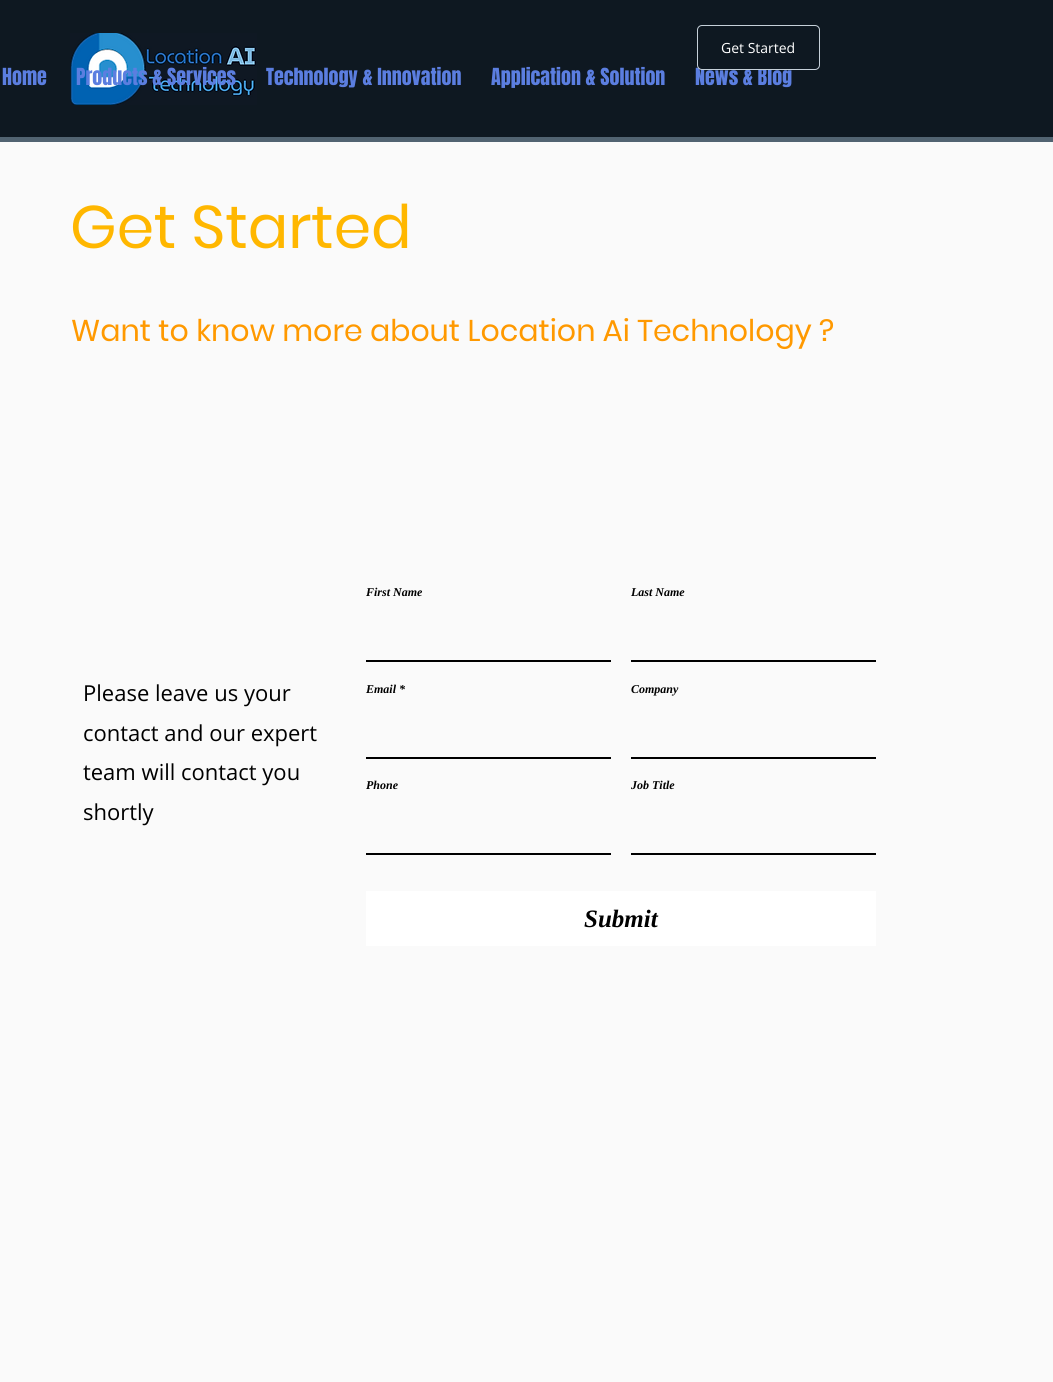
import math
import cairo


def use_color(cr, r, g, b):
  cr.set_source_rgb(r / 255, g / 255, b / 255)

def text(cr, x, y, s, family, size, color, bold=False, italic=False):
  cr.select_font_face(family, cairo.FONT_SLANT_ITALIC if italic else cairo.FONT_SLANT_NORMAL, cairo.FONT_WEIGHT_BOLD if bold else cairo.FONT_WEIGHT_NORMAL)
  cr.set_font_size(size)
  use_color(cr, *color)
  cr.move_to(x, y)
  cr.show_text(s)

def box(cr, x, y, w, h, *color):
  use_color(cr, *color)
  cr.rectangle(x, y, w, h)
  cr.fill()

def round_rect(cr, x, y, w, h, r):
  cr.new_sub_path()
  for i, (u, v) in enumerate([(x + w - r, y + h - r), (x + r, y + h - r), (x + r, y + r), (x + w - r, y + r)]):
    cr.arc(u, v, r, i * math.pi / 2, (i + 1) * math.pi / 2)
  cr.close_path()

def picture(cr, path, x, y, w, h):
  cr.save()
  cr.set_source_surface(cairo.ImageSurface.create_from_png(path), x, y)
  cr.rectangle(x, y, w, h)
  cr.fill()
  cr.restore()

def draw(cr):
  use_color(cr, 250, 250, 250)
  cr.paint()
  box(cr, 0, 0, 1053, 137, 14, 24, 33)
  box(cr, 0, 137, 1053, 5, 81, 99, 113)
  picture(cr, "img_01.png", 70, 33, 187, 72)
  box(cr, 366, 660, 245, 2, 0, 0, 0)
  box(cr, 631, 660, 245, 2, 0, 0, 0)
  box(cr, 366, 757, 245, 2, 0, 0, 0)
  box(cr, 631, 757, 245, 2, 0, 0, 0)
  box(cr, 366, 853, 245, 2, 0, 0, 0)
  box(cr, 631, 853, 245, 2, 0, 0, 0)
  box(cr, 366, 891, 510, 55, 255, 255, 255)
  text(cr, 2, 85, "Home", "Anton", 20, (91, 126, 224))
  text(cr, 76, 85, "Products & Services", "Anton", 20, (91, 126, 224))
  text(cr, 266, 85, "Technology & Innovation", "Anton", 20, (91, 126, 224))
  text(cr, 491, 85, "Application & Solution", "Anton", 20, (91, 126, 224))
  text(cr, 695, 85, "News & Blog", "Anton", 20, (91, 126, 224))
  use_color(cr, 14, 24, 33)
  round_rect(cr, 697.5, 25.5, 122, 44, 4.5)
  cr.fill_preserve()
  use_color(cr, 197, 208, 217)
  cr.set_line_width(1)
  cr.stroke()
  text(cr, 721, 53, "Get Started", "Open Sans", 14, (255, 255, 255))
  text(cr, 70, 248, "Get Started", "Poppins", 60, (255, 183, 0))
  text(cr, 71, 341, "Want to know more about Location Ai Technology ?", "Poppins", 30, (255, 153, 0))
  text(cr, 83, 701, "Please leave us your", "Open Sans", 22, (0, 0, 0))
  text(cr, 83, 741, "contact and our expert", "Open Sans", 22, (0, 0, 0))
  text(cr, 83, 780, "team will contact you", "Open Sans", 22, (0, 0, 0))
  text(cr, 83, 820, "shortly", "Open Sans", 22, (0, 0, 0))
  text(cr, 366, 596, "First Name", "Liberation Serif", 12, (0, 0, 0), bold=True, italic=True)
  text(cr, 631, 596, "Last Name", "Liberation Serif", 12, (0, 0, 0), bold=True, italic=True)
  text(cr, 366, 693, "Email *", "Liberation Serif", 12, (0, 0, 0), bold=True, italic=True)
  text(cr, 631, 693, "Company", "Liberation Serif", 12, (0, 0, 0), bold=True, italic=True)
  text(cr, 366, 789, "Phone", "Liberation Serif", 12, (0, 0, 0), bold=True, italic=True)
  text(cr, 631, 789, "Job Title", "Liberation Serif", 12, (0, 0, 0), bold=True, italic=True)
  text(cr, 584, 927, "Submit", "Liberation Serif", 25, (0, 0, 0), bold=True, italic=True)


surface = cairo.ImageSurface(cairo.FORMAT_RGB24, 1053, 1382)
cr = cairo.Context(surface)
options = cairo.FontOptions()
options.set_hint_metrics(cairo.HINT_METRICS_OFF)
options.set_hint_style(cairo.HINT_STYLE_NONE)
cr.set_font_options(options)
cr.set_miter_limit(4)
draw(cr)
surface.write_to_png("out.png")
